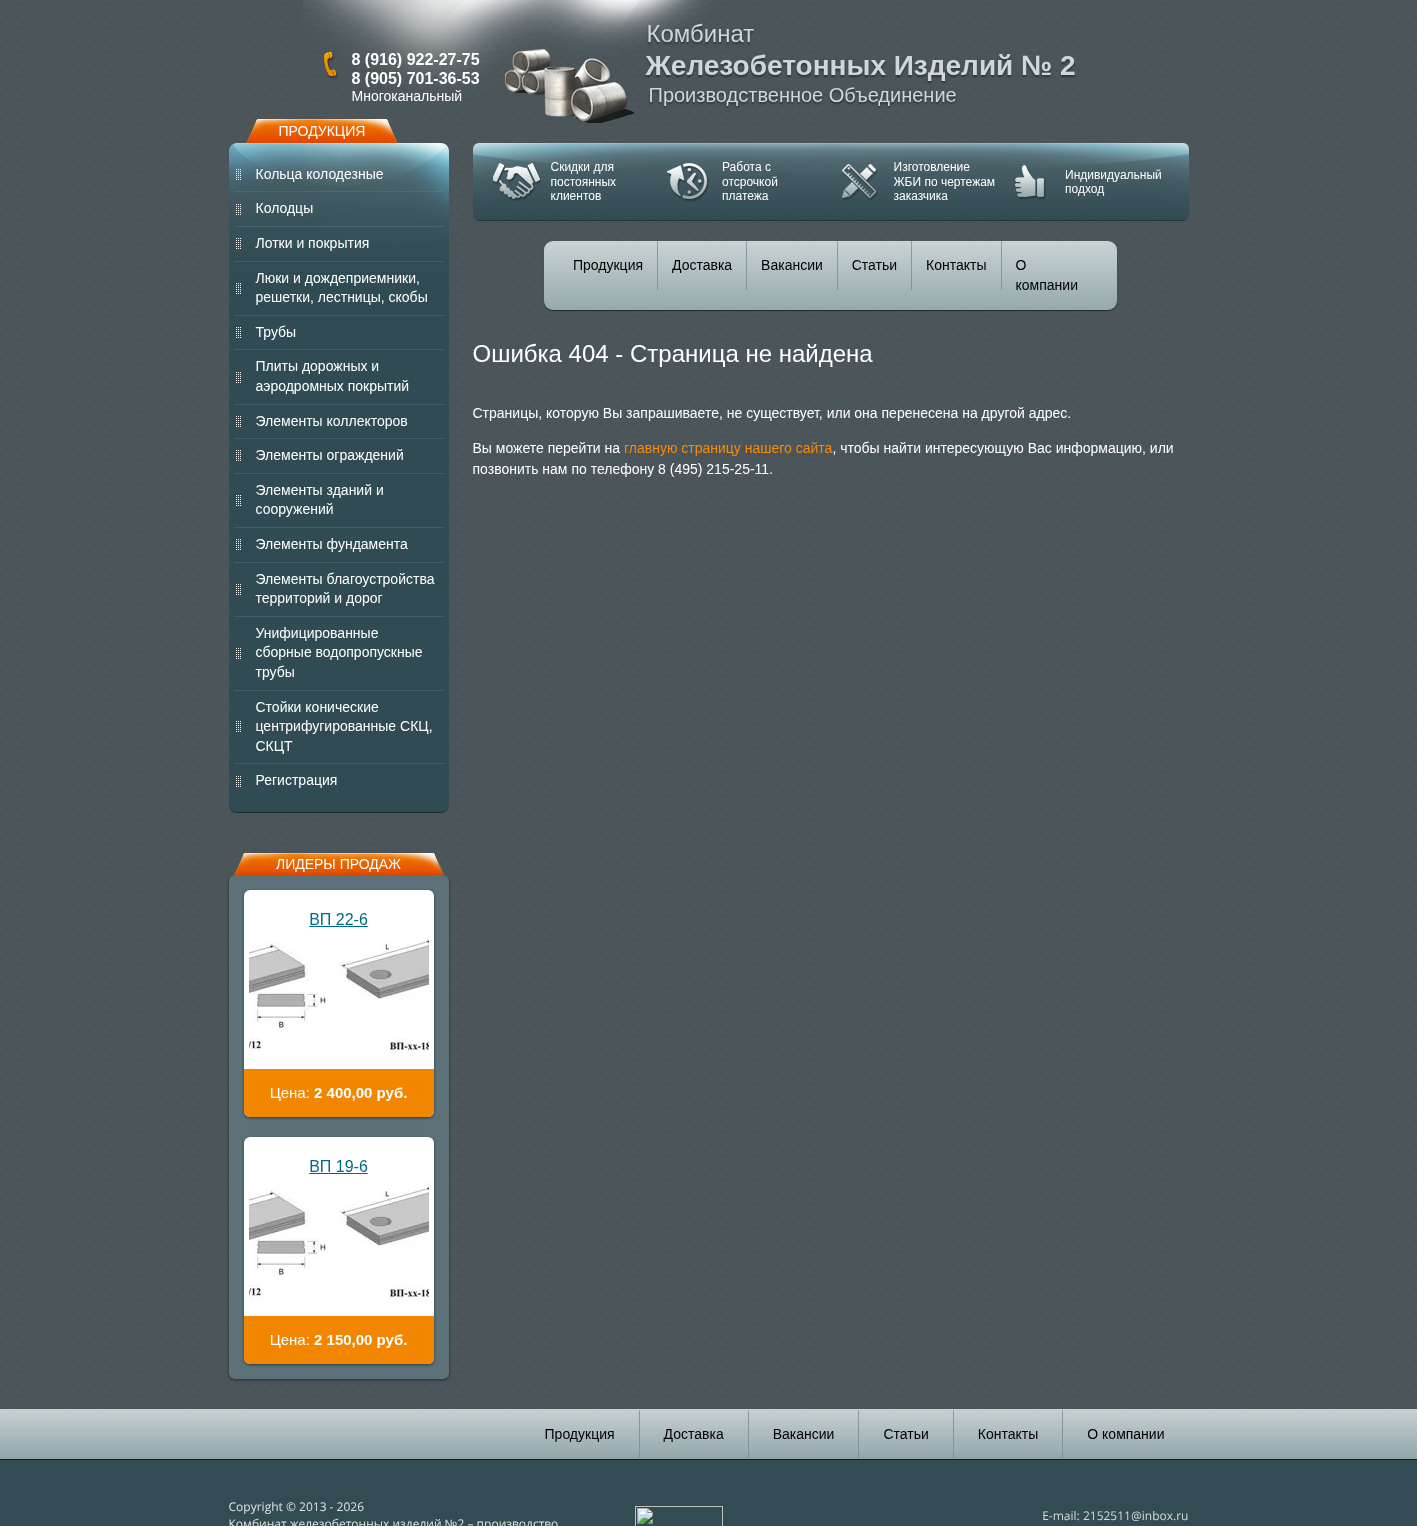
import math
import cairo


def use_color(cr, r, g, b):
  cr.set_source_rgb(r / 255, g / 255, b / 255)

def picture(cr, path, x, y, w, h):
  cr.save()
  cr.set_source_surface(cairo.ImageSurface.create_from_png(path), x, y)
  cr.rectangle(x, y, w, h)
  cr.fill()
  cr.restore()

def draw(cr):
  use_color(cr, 255, 255, 255)
  cr.paint()
  picture(cr, "img_01.png", 0, 0, 1417, 1526)


surface = cairo.ImageSurface(cairo.FORMAT_RGB24, 1417, 1526)
cr = cairo.Context(surface)
options = cairo.FontOptions()
options.set_hint_metrics(cairo.HINT_METRICS_OFF)
options.set_hint_style(cairo.HINT_STYLE_NONE)
cr.set_font_options(options)
cr.set_miter_limit(4)
draw(cr)
surface.write_to_png("out.png")
